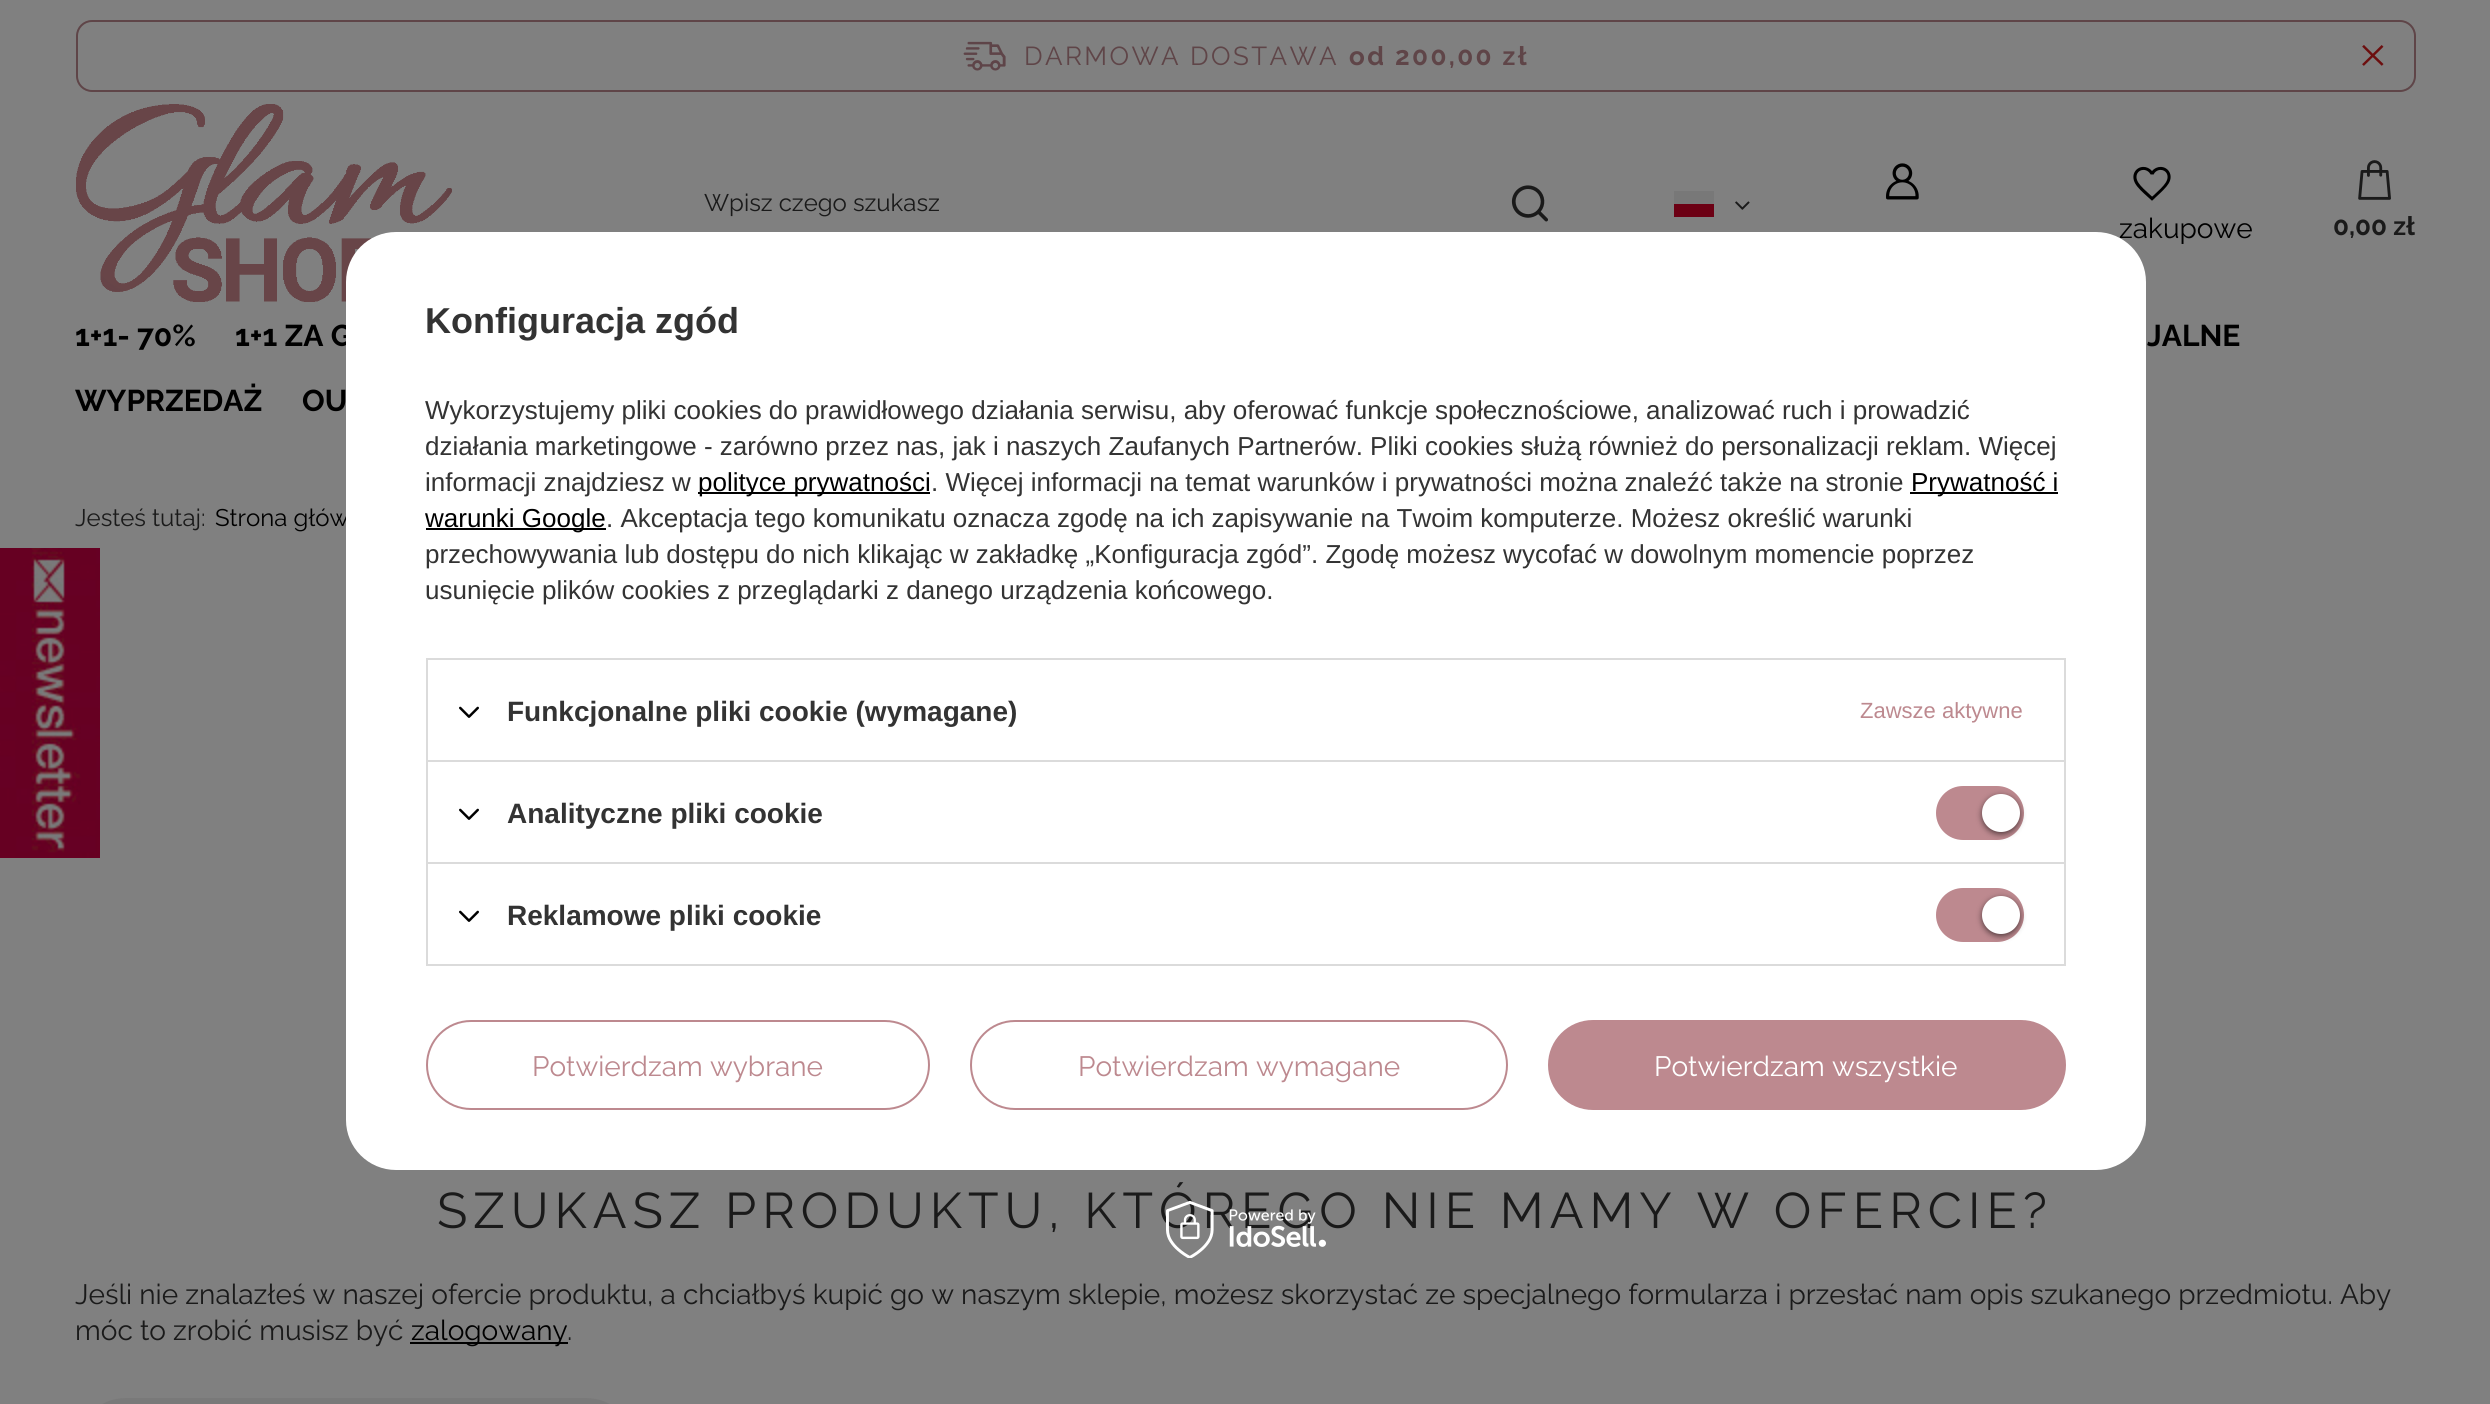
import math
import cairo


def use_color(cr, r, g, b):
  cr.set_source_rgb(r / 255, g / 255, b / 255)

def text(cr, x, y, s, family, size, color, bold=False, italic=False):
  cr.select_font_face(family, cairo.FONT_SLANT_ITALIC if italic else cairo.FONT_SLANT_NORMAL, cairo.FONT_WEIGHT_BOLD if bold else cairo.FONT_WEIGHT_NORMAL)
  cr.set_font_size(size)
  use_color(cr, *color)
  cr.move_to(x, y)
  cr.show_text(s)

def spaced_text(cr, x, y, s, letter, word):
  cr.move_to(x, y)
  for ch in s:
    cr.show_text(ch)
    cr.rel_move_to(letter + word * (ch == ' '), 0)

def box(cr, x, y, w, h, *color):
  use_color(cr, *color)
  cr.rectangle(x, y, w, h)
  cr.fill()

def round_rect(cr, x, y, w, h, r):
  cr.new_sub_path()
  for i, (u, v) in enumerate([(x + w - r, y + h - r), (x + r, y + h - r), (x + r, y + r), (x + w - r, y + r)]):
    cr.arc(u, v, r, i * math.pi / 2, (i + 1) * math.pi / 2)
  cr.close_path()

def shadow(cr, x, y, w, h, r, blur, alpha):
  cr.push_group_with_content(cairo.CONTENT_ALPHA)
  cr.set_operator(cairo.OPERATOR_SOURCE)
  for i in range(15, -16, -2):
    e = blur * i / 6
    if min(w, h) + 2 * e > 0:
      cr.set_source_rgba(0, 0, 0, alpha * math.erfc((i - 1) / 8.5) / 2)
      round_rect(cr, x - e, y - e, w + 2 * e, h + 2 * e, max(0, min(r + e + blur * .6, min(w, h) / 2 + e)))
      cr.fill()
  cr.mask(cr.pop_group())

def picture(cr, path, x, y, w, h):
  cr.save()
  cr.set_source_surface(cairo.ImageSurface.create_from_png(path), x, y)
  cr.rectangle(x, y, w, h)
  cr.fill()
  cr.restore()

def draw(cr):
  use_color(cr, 128, 128, 128)
  cr.paint()
  round_rect(cr, 77, 21, 2338, 70, 15)
  use_color(cr, 95, 69, 72)
  cr.stroke()
  picture(cr, "img_01.png", 963, 41, 43, 30)
  picture(cr, "img_02.png", 2362, 45, 22, 21)
  picture(cr, "img_03.png", 76, 104, 376, 198)
  picture(cr, "img_04.png", 1511, 185, 37, 37)
  picture(cr, "img_05.png", 1886, 163, 33, 37)
  box(cr, 1674, 191, 40, 13, 120, 120, 120)
  box(cr, 1674, 204, 40, 13, 108, 0, 20)
  picture(cr, "img_06.png", 1735, 201, 15, 9)
  picture(cr, "img_07.png", 2133, 166, 38, 35)
  picture(cr, "img_08.png", 2358, 160, 33, 40)
  box(cr, 410, 1342, 158, 2, 0, 0, 0)
  use_color(cr, 121, 121, 121)
  round_rect(cr, 76, 1398, 560, 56, 50)
  cr.fill()
  picture(cr, "img_09.png", 0, 548, 100, 310)
  cr.select_font_face("Raleway")
  cr.set_font_size(26)
  use_color(cr, 95, 69, 72)
  spaced_text(cr, 1024, 65, "DARMOWA DOSTAWA", 2.4, 0)
  cr.select_font_face("Raleway", cairo.FONT_SLANT_NORMAL, cairo.FONT_WEIGHT_BOLD)
  spaced_text(cr, 1349, 65, "od 200,00 zł", 2.4, 0)
  text(cr, 704, 211, "Wpisz czego szukasz", "Raleway", 24, (26, 26, 26))
  text(cr, 2119, 238, "zakupowe", "Raleway", 28, (0, 0, 0))
  text(cr, 2333, 235, "0,00 zł", "Raleway", 26, (26, 26, 26), bold=True)
  text(cr, 75, 346, "1+1- 70%", "Raleway", 30, (0, 0, 0), bold=True)
  text(cr, 235, 346, "1+1 ZA G", "Raleway", 30, (0, 0, 0), bold=True)
  text(cr, 2147, 346, "JALNE", "Raleway", 30, (0, 0, 0), bold=True)
  text(cr, 75, 411, "WYPRZEDAŻ", "Raleway", 30, (0, 0, 0), bold=True)
  text(cr, 302, 411, "OU", "Raleway", 30, (0, 0, 0), bold=True)
  text(cr, 75, 526, "Jesteś tutaj:", "Raleway", 24, (26, 26, 26))
  text(cr, 215, 526, "Strona głów", "Raleway", 24, (0, 0, 0))
  cr.set_font_size(50)
  use_color(cr, 26, 26, 26)
  spaced_text(cr, 437, 1228, "SZUKASZ PRODUKTU, KTÓREGO NIE MAMY W OFERCIE?", 6, 0)
  text(cr, 75, 1304, "Jeśli nie znalazłeś w naszej ofercie produktu, a chciałbyś kupić go w naszym sklepie, możesz skorzystać ze specjalnego formularza i przesłać nam opis szukanego przedmiotu. Aby", "Raleway", 28, (26, 26, 26))
  text(cr, 75, 1340, "móc to zrobić musisz być", "Raleway", 28, (26, 26, 26))
  text(cr, 411, 1340, "zalogowany", "Raleway", 28, (0, 0, 0))
  text(cr, 567, 1340, ".", "Raleway", 28, (26, 26, 26))
  use_color(cr, 255, 255, 255)
  round_rect(cr, 346, 232, 1800, 938, 50)
  cr.fill()
  text(cr, 425, 333, "Konfiguracja zgód", "Liberation Sans", 36, (51, 51, 51), bold=True)
  text(cr, 425, 419, "Wykorzystujemy pliki cookies do prawidłowego działania serwisu, aby oferować funkcje społecznościowe, analizować ruch i prowadzić", "Liberation Sans", 26, (51, 51, 51))
  text(cr, 425, 455, "działania marketingowe - zarówno przez nas, jak i naszych Zaufanych Partnerów. Pliki cookies służą również do personalizacji reklam. Więcej", "Liberation Sans", 26, (51, 51, 51))
  text(cr, 425, 491, "informacji znajdziesz w", "Liberation Sans", 26, (51, 51, 51))
  box(cr, 698, 492, 232, 2, 0, 0, 0)
  text(cr, 698, 491, "polityce prywatności", "Liberation Sans", 26, (0, 0, 0))
  text(cr, 931, 491, ". Więcej informacji na temat warunków i prywatności można znaleźć także na stronie", "Liberation Sans", 26, (51, 51, 51))
  box(cr, 1910, 492, 148, 2, 0, 0, 0)
  text(cr, 1911, 491, "Prywatność i", "Liberation Sans", 26, (0, 0, 0))
  box(cr, 426, 528, 180, 2, 0, 0, 0)
  text(cr, 425, 527, "warunki Google", "Liberation Sans", 26, (0, 0, 0))
  text(cr, 606, 527, ". Akceptacja tego komunikatu oznacza zgodę na ich zapisywanie na Twoim komputerze. Możesz określić warunki", "Liberation Sans", 26, (51, 51, 51))
  text(cr, 425, 563, "przechowywania lub dostępu do nich klikając w zakładkę „Konfiguracja zgód”. Zgodę możesz wycofać w dowolnym momencie poprzez", "Liberation Sans", 26, (51, 51, 51))
  text(cr, 425, 599, "usunięcie plików cookies z przeglądarki z danego urządzenia końcowego.", "Liberation Sans", 26, (51, 51, 51))
  box(cr, 426, 658, 1640, 2, 219, 219, 219)
  box(cr, 2064, 658, 2, 102, 219, 219, 219)
  box(cr, 426, 658, 2, 102, 219, 219, 219)
  picture(cr, "img_10.png", 459, 706, 20, 12)
  text(cr, 507, 721, "Funkcjonalne pliki cookie (wymagane)", "Liberation Sans", 28, (51, 51, 51), bold=True)
  text(cr, 1860, 718, "Zawsze aktywne", "Liberation Sans", 22, (189, 137, 143))
  box(cr, 426, 760, 1640, 2, 219, 219, 219)
  box(cr, 2064, 760, 2, 102, 219, 219, 219)
  box(cr, 426, 760, 2, 102, 219, 219, 219)
  picture(cr, "img_10.png", 459, 808, 20, 12)
  text(cr, 507, 823, "Analityczne pliki cookie", "Liberation Sans", 28, (51, 51, 51), bold=True)
  use_color(cr, 189, 137, 143)
  round_rect(cr, 1936, 786, 88, 54, 27)
  cr.fill()
  use_color(cr, 0, 0, 0)
  shadow(cr, 1982, 796, 38, 38, 19, 3, 0.56)
  use_color(cr, 255, 255, 255)
  cr.arc(2001, 813, 19, 0, 2 * math.pi)
  cr.fill()
  cr.rectangle(427, 863, 1638, 102)
  use_color(cr, 219, 219, 219)
  cr.stroke()
  picture(cr, "img_10.png", 459, 910, 20, 12)
  text(cr, 507, 925, "Reklamowe pliki cookie", "Liberation Sans", 28, (51, 51, 51), bold=True)
  use_color(cr, 189, 137, 143)
  round_rect(cr, 1936, 888, 88, 54, 27)
  cr.fill()
  use_color(cr, 0, 0, 0)
  shadow(cr, 1982, 898, 38, 38, 19, 3, 0.56)
  use_color(cr, 255, 255, 255)
  cr.arc(2001, 915, 19, 0, 2 * math.pi)
  cr.fill()
  round_rect(cr, 427, 1021, 502, 88, 44)
  use_color(cr, 189, 137, 143)
  cr.stroke()
  text(cr, 532, 1076, "Potwierdzam wybrane", "Raleway", 28, (189, 137, 143))
  round_rect(cr, 971, 1021, 536, 88, 44)
  cr.stroke()
  text(cr, 1078, 1076, "Potwierdzam wymagane", "Raleway", 28, (189, 137, 143))
  round_rect(cr, 1549, 1021, 516, 88, 44)
  cr.fill_preserve()
  cr.stroke()
  text(cr, 1654, 1076, "Potwierdzam wszystkie", "Raleway", 28, (255, 255, 255))
  picture(cr, "img_11.png", 1166, 1201, 160, 57)


surface = cairo.ImageSurface(cairo.FORMAT_RGB24, 2490, 1404)
cr = cairo.Context(surface)
options = cairo.FontOptions()
options.set_hint_metrics(cairo.HINT_METRICS_OFF)
options.set_hint_style(cairo.HINT_STYLE_NONE)
cr.set_font_options(options)
cr.set_miter_limit(4)
draw(cr)
surface.write_to_png("out.png")
